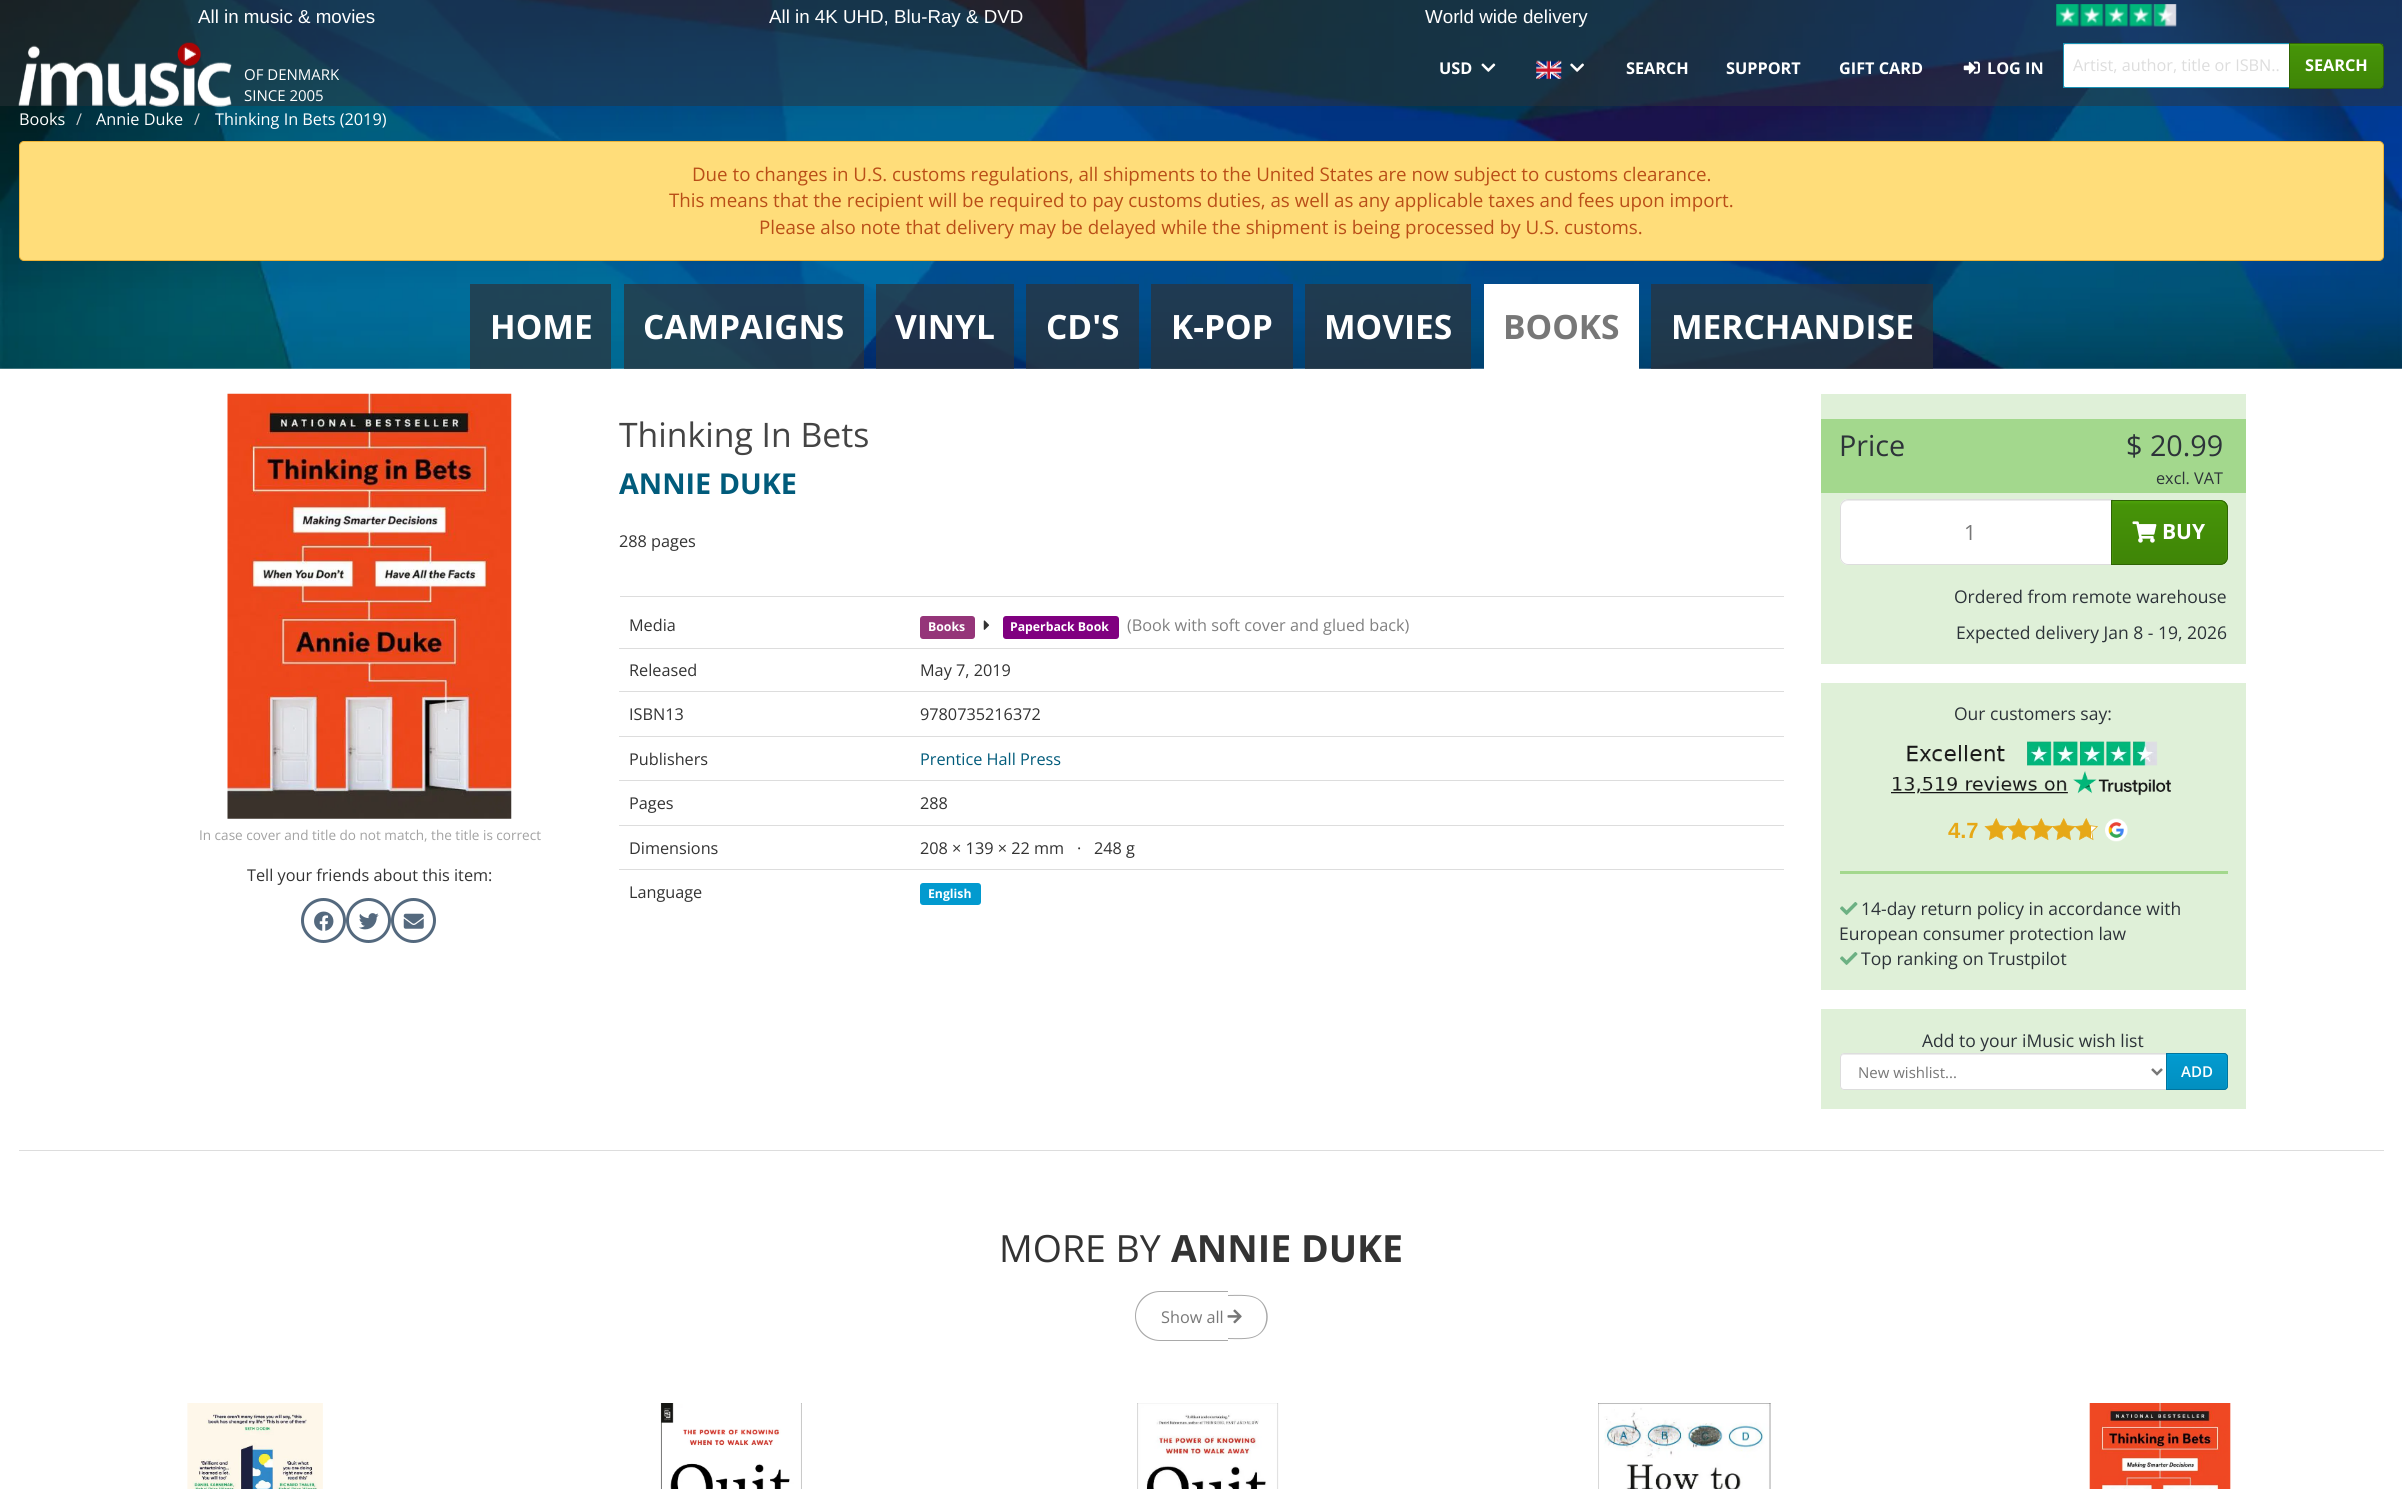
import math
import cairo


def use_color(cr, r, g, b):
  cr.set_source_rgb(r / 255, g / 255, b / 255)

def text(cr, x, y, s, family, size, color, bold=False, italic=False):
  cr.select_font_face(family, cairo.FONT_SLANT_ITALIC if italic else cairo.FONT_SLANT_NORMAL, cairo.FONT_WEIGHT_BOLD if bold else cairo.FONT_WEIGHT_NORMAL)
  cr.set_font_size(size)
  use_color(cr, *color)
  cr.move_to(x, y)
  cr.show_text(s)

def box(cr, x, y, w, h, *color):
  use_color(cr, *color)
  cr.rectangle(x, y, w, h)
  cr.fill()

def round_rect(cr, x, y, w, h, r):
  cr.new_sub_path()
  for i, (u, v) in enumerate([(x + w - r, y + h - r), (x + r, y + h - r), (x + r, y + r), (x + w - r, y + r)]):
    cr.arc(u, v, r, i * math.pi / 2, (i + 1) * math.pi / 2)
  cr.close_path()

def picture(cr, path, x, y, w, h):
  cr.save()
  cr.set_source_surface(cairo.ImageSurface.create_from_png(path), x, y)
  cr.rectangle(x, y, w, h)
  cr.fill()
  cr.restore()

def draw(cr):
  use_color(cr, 255, 255, 255)
  cr.paint()
  picture(cr, "img_01.png", 0, 0, 2402, 369)
  cr.set_source_rgba(0.176, 0.2, 0.224, 0.5)
  cr.rectangle(0, 0, 2402, 106)
  cr.fill()
  picture(cr, "img_02.png", 2056, 4, 121, 23)
  picture(cr, "img_03.png", 1481, 63, 15, 9)
  picture(cr, "img_04.png", 1536, 60, 26, 19)
  picture(cr, "img_05.png", 1570, 63, 14, 9)
  picture(cr, "img_06.png", 1963, 61, 17, 13)
  use_color(cr, 255, 255, 255)
  cr.new_path()
  cr.move_to(2068, 43)
  cr.line_to(2290, 43)
  cr.line_to(2290, 88)
  cr.line_to(2068, 88)
  cr.curve_to(2065, 88, 2063, 86, 2063, 83)
  cr.line_to(2063, 48)
  cr.curve_to(2063, 45, 2065, 43, 2068, 43)
  cr.close_path()
  cr.fill()
  cr.set_source_rgba(0, 0, 0, 0.07)
  cr.rectangle(2064, 44, 225, 1)
  cr.fill()
  cr.rectangle(2063.5, 43.5, 226, 44)
  use_color(cr, 25, 147, 182)
  cr.set_line_width(1)
  cr.stroke()
  gradient = cairo.LinearGradient(2336, 44, 2336, 88)
  gradient.add_color_stop_rgba(0, 0.302, 0.639, 0.035, 1)
  gradient.add_color_stop_rgba(0.06, 0.275, 0.58, 0.031, 1)
  gradient.add_color_stop_rgba(1, 0.247, 0.522, 0.027, 1)
  cr.set_source(gradient)
  cr.rectangle(2290, 44, 93, 44)
  cr.fill()
  cr.new_path()
  cr.move_to(2289.5, 43.5)
  cr.line_to(2379, 43.5)
  cr.curve_to(2381.5, 43.5, 2383.5, 45.5, 2383.5, 48)
  cr.line_to(2383.5, 84)
  cr.curve_to(2383.5, 86.5, 2381.5, 88.5, 2379, 88.5)
  cr.line_to(2289.5, 88.5)
  cr.close_path()
  use_color(cr, 47, 100, 5)
  cr.stroke()
  picture(cr, "img_07.png", 18, 42, 214, 65)
  use_color(cr, 255, 221, 122)
  round_rect(cr, 19.5, 141.5, 2364, 119, 4.5)
  cr.fill_preserve()
  use_color(cr, 238, 180, 55)
  cr.stroke()
  cr.set_source_rgba(0.176, 0.2, 0.224, 0.7)
  cr.rectangle(470, 284, 141, 85)
  cr.fill()
  cr.rectangle(624, 284, 240, 85)
  cr.fill()
  cr.rectangle(876, 284, 138, 85)
  cr.fill()
  cr.rectangle(1026, 284, 113, 85)
  cr.fill()
  cr.rectangle(1151, 284, 142, 85)
  cr.fill()
  cr.rectangle(1305, 284, 166, 85)
  cr.fill()
  box(cr, 1484, 284, 155, 85, 255, 255, 255)
  cr.set_source_rgba(0.176, 0.2, 0.224, 0.7)
  cr.rectangle(1651, 284, 282, 85)
  cr.fill()
  picture(cr, "img_08.png", 227, 393, 285, 426)
  cr.arc(323.5, 920.5, 21, 0, 2 * math.pi)
  use_color(cr, 84, 105, 126)
  cr.set_line_width(3)
  cr.stroke()
  picture(cr, "img_09.png", 314, 911, 20, 20)
  cr.arc(368.5, 920.5, 21, 0, 2 * math.pi)
  cr.stroke()
  picture(cr, "img_10.png", 359, 913, 20, 17)
  cr.arc(413.5, 920.5, 21, 0, 2 * math.pi)
  cr.stroke()
  picture(cr, "img_11.png", 403, 913, 21, 16)
  box(cr, 620, 596, 1164, 1, 221, 221, 221)
  use_color(cr, 149, 53, 121)
  round_rect(cr, 920, 616, 55, 23, 3)
  cr.fill()
  picture(cr, "img_12.png", 983, 620, 7, 10)
  use_color(cr, 128, 0, 128)
  round_rect(cr, 1003, 616, 116, 23, 3)
  cr.fill()
  box(cr, 619, 648, 1165, 1, 221, 221, 221)
  box(cr, 619, 691, 1165, 1, 221, 221, 221)
  box(cr, 619, 736, 1165, 1, 221, 221, 221)
  box(cr, 619, 780, 1165, 1, 221, 221, 221)
  box(cr, 619, 825, 1165, 1, 221, 221, 221)
  box(cr, 619, 869, 1165, 1, 221, 221, 221)
  use_color(cr, 2, 154, 207)
  round_rect(cr, 920, 883, 61, 22, 3)
  cr.fill()
  box(cr, 1821, 394, 425, 270, 223, 240, 216)
  box(cr, 1821, 419, 425, 74, 163, 216, 141)
  use_color(cr, 255, 255, 255)
  cr.new_path()
  cr.move_to(1848, 499)
  cr.line_to(2113, 499)
  cr.line_to(2113, 565)
  cr.line_to(1848, 565)
  cr.curve_to(1843.5, 565, 1840, 561.5, 1840, 557)
  cr.line_to(1840, 507)
  cr.curve_to(1840, 502.5, 1843.5, 499, 1848, 499)
  cr.close_path()
  cr.fill()
  use_color(cr, 236, 236, 236)
  cr.new_path()
  cr.move_to(1848, 501)
  cr.line_to(2111, 501)
  cr.line_to(2111, 500)
  cr.line_to(1847, 500)
  cr.curve_to(1842, 500, 1841, 504, 1841, 508)
  cr.curve_to(1841, 504, 1844, 501, 1848, 501)
  cr.close_path()
  cr.fill()
  cr.new_path()
  cr.move_to(1848, 499.5)
  cr.line_to(2112.5, 499.5)
  cr.line_to(2112.5, 564.5)
  cr.line_to(1848, 564.5)
  cr.curve_to(1844, 564.5, 1840.5, 561, 1840.5, 557)
  cr.line_to(1840.5, 507)
  cr.curve_to(1840.5, 503, 1844, 499.5, 1848, 499.5)
  cr.close_path()
  use_color(cr, 221, 221, 221)
  cr.set_line_width(1)
  cr.stroke()
  use_color(cr, 70, 148, 8)
  cr.new_path()
  cr.move_to(2111, 500)
  cr.line_to(2220, 500)
  cr.curve_to(2224.5, 500, 2228, 503.5, 2228, 508)
  cr.line_to(2228, 557)
  cr.curve_to(2228, 561.5, 2224.5, 565, 2220, 565)
  cr.line_to(2111, 565)
  cr.close_path()
  cr.fill()
  cr.save()
  cr.new_path()
  cr.move_to(2111, 500)
  cr.line_to(2220, 500)
  cr.curve_to(2224.5, 500, 2228, 503.5, 2228, 508)
  cr.line_to(2228, 557)
  cr.curve_to(2228, 561.5, 2224.5, 565, 2220, 565)
  cr.line_to(2111, 565)
  cr.close_path()
  cr.clip()
  gradient = cairo.LinearGradient(2169, 501, 2169, 564)
  gradient.add_color_stop_rgba(0, 0.302, 0.639, 0.035, 1)
  gradient.add_color_stop_rgba(0.06, 0.275, 0.58, 0.031, 1)
  gradient.add_color_stop_rgba(1, 0.247, 0.522, 0.027, 1)
  cr.set_source(gradient)
  cr.rectangle(2113, 501, 113, 63)
  cr.fill()
  cr.restore()
  cr.new_path()
  cr.move_to(2111.5, 500.5)
  cr.line_to(2220, 500.5)
  cr.curve_to(2224, 500.5, 2227.5, 504, 2227.5, 508)
  cr.line_to(2227.5, 557)
  cr.curve_to(2227.5, 561, 2224, 564.5, 2220, 564.5)
  cr.line_to(2111.5, 564.5)
  cr.close_path()
  use_color(cr, 47, 100, 5)
  cr.stroke()
  picture(cr, "img_13.png", 2132, 521, 25, 22)
  box(cr, 1821, 683, 425, 307, 223, 240, 216)
  picture(cr, "img_14.png", 1891, 741, 280, 55)
  picture(cr, "img_15.png", 1984, 818, 114, 23)
  picture(cr, "img_16.png", 2105, 818, 23, 24)
  box(cr, 1840, 871, 388, 3, 163, 216, 141)
  picture(cr, "img_17.png", 1840, 902, 18, 13)
  picture(cr, "img_17.png", 1840, 952, 18, 13)
  box(cr, 1821, 1009, 425, 100, 223, 240, 216)
  use_color(cr, 255, 255, 255)
  cr.new_path()
  cr.move_to(1844, 1053)
  cr.line_to(2168, 1053)
  cr.line_to(2168, 1090)
  cr.line_to(1844, 1090)
  cr.curve_to(1842, 1090, 1840, 1088, 1840, 1086)
  cr.line_to(1840, 1057)
  cr.curve_to(1840, 1055, 1842, 1053, 1844, 1053)
  cr.close_path()
  cr.fill()
  use_color(cr, 236, 236, 236)
  cr.new_path()
  cr.move_to(1844, 1055)
  cr.line_to(2166, 1055)
  cr.line_to(2166, 1054)
  cr.line_to(1844, 1054)
  cr.curve_to(1842, 1054, 1841, 1055, 1841, 1056)
  cr.line_to(1841, 1058)
  cr.curve_to(1841, 1056, 1842, 1055, 1844, 1055)
  cr.close_path()
  cr.fill()
  cr.new_path()
  cr.move_to(1844, 1053.5)
  cr.line_to(2167.5, 1053.5)
  cr.line_to(2167.5, 1089.5)
  cr.line_to(1844, 1089.5)
  cr.curve_to(1842, 1089.5, 1840.5, 1088, 1840.5, 1086)
  cr.line_to(1840.5, 1057)
  cr.curve_to(1840.5, 1055, 1842, 1053.5, 1844, 1053.5)
  cr.close_path()
  use_color(cr, 221, 221, 221)
  cr.stroke()
  cr.new_path()
  cr.move_to(2152, 1069)
  cr.line_to(2157, 1074)
  cr.line_to(2162, 1069)
  use_color(cr, 119, 119, 119)
  cr.set_line_width(2.5)
  cr.stroke()
  use_color(cr, 2, 154, 207)
  cr.new_path()
  cr.move_to(2166, 1053)
  cr.line_to(2224, 1053)
  cr.curve_to(2226, 1053, 2228, 1055, 2228, 1057)
  cr.line_to(2228, 1086)
  cr.curve_to(2228, 1088, 2226, 1090, 2224, 1090)
  cr.line_to(2166, 1090)
  cr.close_path()
  cr.fill()
  gradient = cairo.LinearGradient(2197, 1054, 2197, 1089)
  gradient.add_color_stop_rgba(0, 0.008, 0.647, 0.871, 1)
  gradient.add_color_stop_rgba(0.06, 0.008, 0.604, 0.812, 1)
  gradient.add_color_stop_rgba(1, 0.008, 0.561, 0.753, 1)
  cr.set_source(gradient)
  cr.rectangle(2168, 1054, 58, 35)
  cr.fill()
  cr.new_path()
  cr.move_to(2166.5, 1053.5)
  cr.line_to(2224, 1053.5)
  cr.curve_to(2226, 1053.5, 2227.5, 1055, 2227.5, 1057)
  cr.line_to(2227.5, 1086)
  cr.curve_to(2227.5, 1088, 2226, 1089.5, 2224, 1089.5)
  cr.line_to(2166.5, 1089.5)
  cr.close_path()
  use_color(cr, 2, 116, 156)
  cr.set_line_width(1)
  cr.stroke()
  box(cr, 19, 1150, 2365, 1, 221, 221, 221)
  use_color(cr, 169, 169, 169)
  cr.set_fill_rule(cairo.FILL_RULE_EVEN_ODD)
  cr.new_path()
  cr.move_to(1160, 1291)
  cr.line_to(1228, 1291)
  cr.line_to(1228, 1341)
  cr.line_to(1160, 1341)
  cr.curve_to(1146, 1341, 1135, 1330, 1135, 1316)
  cr.curve_to(1135, 1302, 1146, 1291, 1160, 1291)
  cr.close_path()
  cr.move_to(1160, 1292)
  cr.line_to(1228, 1292)
  cr.line_to(1228, 1340)
  cr.line_to(1160, 1340)
  cr.curve_to(1147, 1340, 1136, 1329, 1136, 1316)
  cr.curve_to(1136, 1303, 1147, 1292, 1160, 1292)
  cr.close_path()
  cr.fill()
  cr.new_path()
  cr.move_to(1228, 1295)
  cr.curve_to(1235, 1295, 1248, 1294, 1255, 1297)
  cr.curve_to(1272, 1304, 1272, 1330, 1255, 1337)
  cr.curve_to(1248, 1340, 1235, 1339, 1228, 1339)
  cr.close_path()
  cr.move_to(1228, 1296)
  cr.curve_to(1235, 1296, 1248, 1295, 1255, 1298)
  cr.curve_to(1270, 1304, 1270, 1330, 1255, 1336)
  cr.curve_to(1248, 1339, 1235, 1338, 1228, 1338)
  cr.close_path()
  cr.fill()
  picture(cr, "img_18.png", 1227, 1309, 15, 15)
  picture(cr, "img_19.png", 187, 1403, 136, 86)
  picture(cr, "img_20.png", 194, 1403, 129, 86)
  picture(cr, "img_21.png", 661, 1403, 141, 86)
  picture(cr, "img_22.png", 660, 1403, 142, 86)
  picture(cr, "img_23.png", 1137, 1403, 142, 86)
  picture(cr, "img_24.png", 1137, 1403, 141, 86)
  picture(cr, "img_25.png", 1769, 1403, 2, 86)
  picture(cr, "img_26.png", 1598, 1403, 172, 86)
  picture(cr, "img_27.png", 2089, 1403, 142, 86)
  picture(cr, "img_28.png", 2089, 1403, 142, 86)
  text(cr, 198, 23, "All in music & movies", "Liberation Sans", 18.75, (255, 255, 255))
  text(cr, 769, 23, "All in 4K UHD, Blu-Ray & DVD", "Liberation Sans", 18.75, (255, 255, 255))
  text(cr, 1425, 23, "World wide delivery", "Liberation Sans", 18.75, (255, 255, 255))
  text(cr, 1439, 74, "USD", "Open Sans", 16.25, (255, 255, 255), bold=True)
  text(cr, 1626, 74, "SEARCH", "Open Sans", 16.25, (255, 255, 255), bold=True)
  text(cr, 1726, 74, "SUPPORT", "Open Sans", 16.25, (255, 255, 255), bold=True)
  text(cr, 1839, 74, "GIFT CARD", "Open Sans", 16.25, (255, 255, 255), bold=True)
  text(cr, 1987, 74, "LOG IN", "Open Sans", 16.25, (255, 255, 255), bold=True)
  text(cr, 2073, 71, "Artist, author, title or ISBN..", "Open Sans", 16.25, (221, 221, 221))
  text(cr, 2305, 71, "SEARCH", "Open Sans", 16.25, (255, 255, 255), bold=True)
  text(cr, 244, 80, "OF DENMARK", "Open Sans", 15, (255, 255, 255))
  text(cr, 244, 101, "SINCE 2005", "Open Sans", 15, (255, 255, 255))
  text(cr, 19, 125, "Books", "Open Sans", 16.25, (255, 255, 255))
  text(cr, 76, 125, "/", "Open Sans", 16.25, (204, 204, 204))
  text(cr, 96, 125, "Annie Duke", "Open Sans", 16.25, (255, 255, 255))
  text(cr, 194, 125, "/", "Open Sans", 16.25, (204, 204, 204))
  text(cr, 215, 125, "Thinking In Bets (2019)", "Open Sans", 16.25, (255, 255, 255))
  text(cr, 692, 181, "Due to changes in U.S. customs regulations, all shipments to the United States are now subject to customs clearance.", "Open Sans", 18.75, (185, 78, 23))
  text(cr, 669, 207, "This means that the recipient will be required to pay customs duties, as well as any applicable taxes and fees upon import.", "Open Sans", 18.75, (185, 78, 23))
  text(cr, 759, 234, "Please also note that delivery may be delayed while the shipment is being processed by U.S. customs.", "Open Sans", 18.75, (185, 78, 23))
  text(cr, 490, 339, "HOME", "Open Sans", 33.5, (255, 255, 255), bold=True)
  text(cr, 643, 339, "CAMPAIGNS", "Open Sans", 33.5, (255, 255, 255), bold=True)
  text(cr, 895, 339, "VINYL", "Open Sans", 33.5, (255, 255, 255), bold=True)
  text(cr, 1046, 339, "CD'S", "Open Sans", 33.5, (255, 255, 255), bold=True)
  text(cr, 1171, 339, "K-POP", "Open Sans", 33.5, (255, 255, 255), bold=True)
  text(cr, 1324, 339, "MOVIES", "Open Sans", 33.5, (255, 255, 255), bold=True)
  text(cr, 1503, 339, "BOOKS", "Open Sans", 33.5, (119, 119, 119), bold=True)
  text(cr, 1671, 339, "MERCHANDISE", "Open Sans", 33.5, (255, 255, 255), bold=True)
  text(cr, 199, 840, "In case cover and title do not match, the title is correct", "Open Sans", 13.55, (162, 162, 162))
  text(cr, 247, 881, "Tell your friends about this item:", "Open Sans", 16.25, (51, 51, 51))
  text(cr, 619, 447, "Thinking In Bets", "Open Sans", 33.75, (68, 68, 68))
  text(cr, 619, 494, "ANNIE DUKE", "Open Sans", 28.75, (1, 91, 123), bold=True)
  text(cr, 619, 547, "288 pages", "Open Sans", 16.25, (51, 51, 51))
  text(cr, 629, 631, "Media", "Open Sans", 16.25, (51, 51, 51))
  text(cr, 928, 631, "Books", "Open Sans", 12.25, (255, 255, 255), bold=True)
  text(cr, 1010, 631, "Paperback Book", "Open Sans", 12.25, (255, 255, 255), bold=True)
  text(cr, 1127, 631, "(Book with soft cover and glued back)", "Open Sans", 16.25, (128, 128, 128))
  text(cr, 629, 676, "Released", "Open Sans", 16.25, (51, 51, 51))
  text(cr, 920, 676, "May 7, 2019", "Open Sans", 16.25, (51, 51, 51))
  text(cr, 629, 720, "ISBN13", "Open Sans", 16.25, (51, 51, 51))
  text(cr, 920, 720, "9780735216372", "Open Sans", 16.25, (51, 51, 51))
  text(cr, 629, 765, "Publishers", "Open Sans", 16.25, (51, 51, 51))
  text(cr, 920, 765, "Prentice Hall Press", "Open Sans", 16.25, (1, 91, 123))
  text(cr, 629, 809, "Pages", "Open Sans", 16.25, (51, 51, 51))
  text(cr, 920, 809, "288", "Open Sans", 16.25, (51, 51, 51))
  text(cr, 629, 854, "Dimensions", "Open Sans", 16.25, (51, 51, 51))
  text(cr, 920, 854, "208 × 139 × 22 mm", "Open Sans", 16.25, (51, 51, 51))
  text(cr, 1077, 854, "·", "Open Sans", 16.25, (51, 51, 51))
  text(cr, 1094, 854, "248 g", "Open Sans", 16.25, (51, 51, 51))
  text(cr, 629, 898, "Language", "Open Sans", 16.25, (51, 51, 51))
  text(cr, 928, 898, "English", "Open Sans", 12.25, (255, 255, 255), bold=True)
  text(cr, 1839, 456, "Price", "Open Sans", 28.75, (45, 51, 57))
  text(cr, 2126, 456, "$ 20.99", "Open Sans", 28.75, (45, 51, 57))
  text(cr, 2156, 484, "excl. VAT", "Open Sans", 16.25, (45, 51, 57))
  text(cr, 1964, 540, "1", "Open Sans", 21, (119, 119, 119))
  text(cr, 2162, 539, "BUY", "Open Sans", 21, (255, 255, 255), bold=True)
  text(cr, 1954, 603, "Ordered from remote warehouse", "Open Sans", 17.5, (45, 51, 57))
  text(cr, 1956, 639, "Expected delivery Jan 8 - 19, 2026", "Open Sans", 17.5, (45, 51, 57))
  text(cr, 1954, 720, "Our customers say:", "Open Sans", 17.5, (45, 51, 57))
  text(cr, 1948, 838, "4.7", "Liberation Sans", 22, (230, 168, 23), bold=True)
  text(cr, 1861, 915, "14-day return policy in accordance with", "Open Sans", 17.5, (45, 51, 57))
  text(cr, 1839, 940, "European consumer protection law", "Open Sans", 17.5, (45, 51, 57))
  text(cr, 1861, 965, "Top ranking on Trustpilot", "Open Sans", 17.5, (45, 51, 57))
  text(cr, 1922, 1047, "Add to your iMusic wish list", "Open Sans", 17.5, (45, 51, 57))
  text(cr, 1858, 1078, "New wishlist...", "Open Sans", 15, (119, 119, 119))
  text(cr, 2181, 1077, "ADD", "Open Sans SemiBold", 15, (255, 255, 255))
  text(cr, 999, 1262, "MORE BY", "Open Sans", 37.5, (51, 51, 51))
  text(cr, 1171, 1262, "ANNIE DUKE", "Open Sans", 37.5, (51, 51, 51), bold=True)
  text(cr, 1161, 1323, "Show all", "Open Sans", 16.25, (119, 119, 119))


surface = cairo.ImageSurface(cairo.FORMAT_RGB24, 2402, 1489)
cr = cairo.Context(surface)
options = cairo.FontOptions()
options.set_hint_metrics(cairo.HINT_METRICS_OFF)
options.set_hint_style(cairo.HINT_STYLE_NONE)
cr.set_font_options(options)
cr.set_miter_limit(4)
draw(cr)
surface.write_to_png("out.png")
